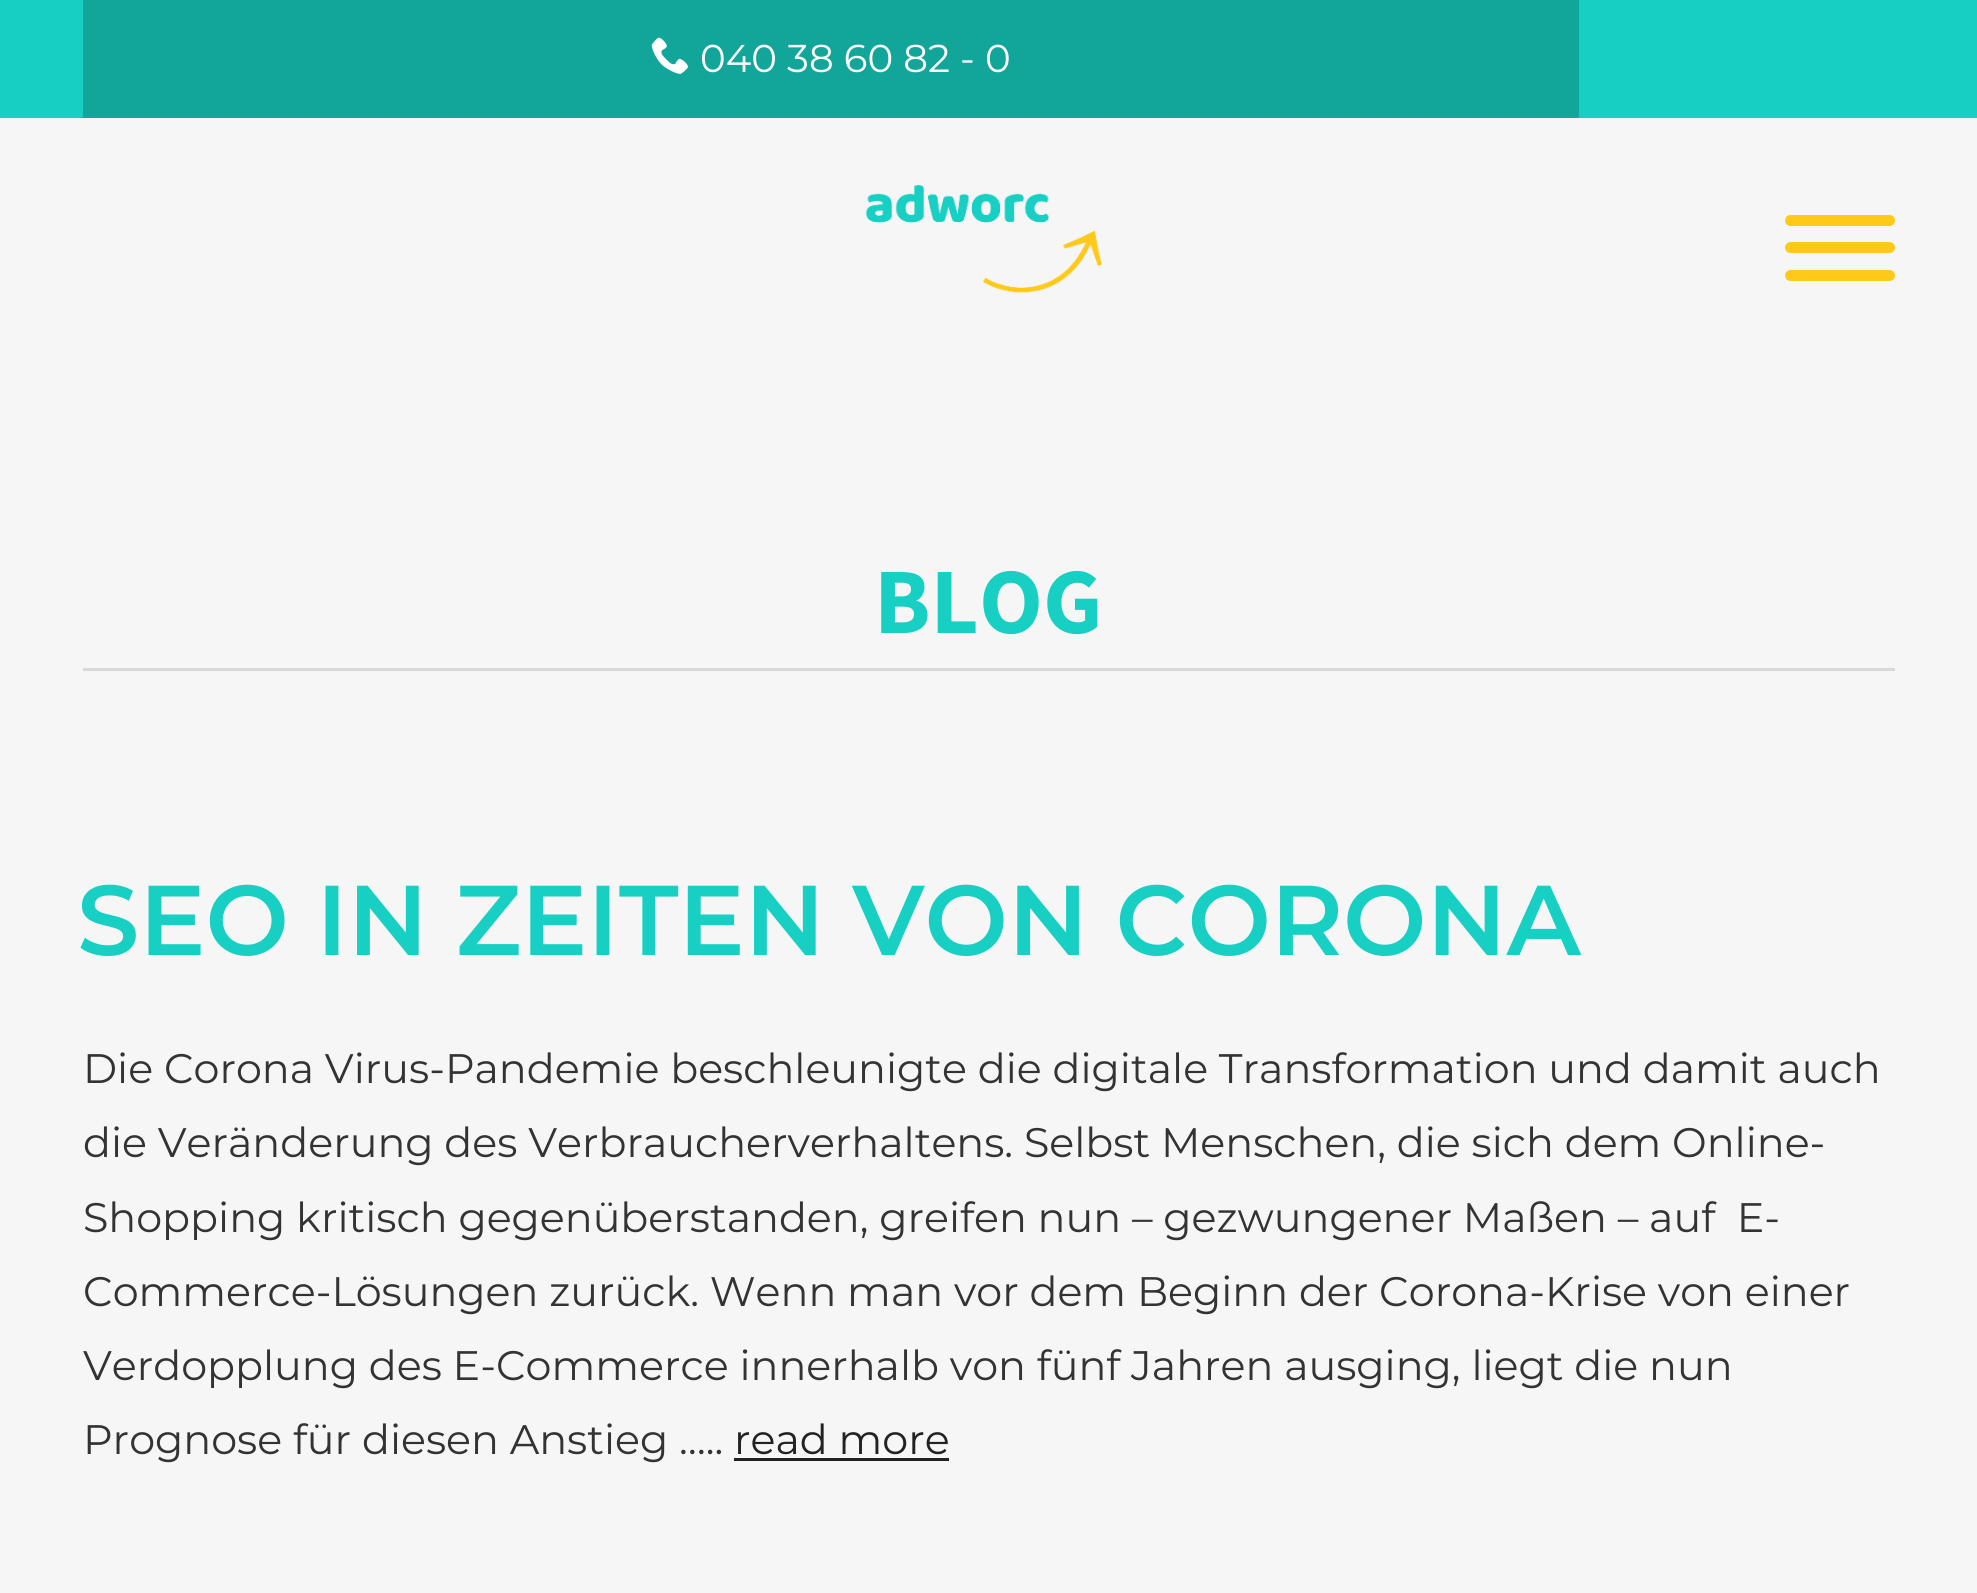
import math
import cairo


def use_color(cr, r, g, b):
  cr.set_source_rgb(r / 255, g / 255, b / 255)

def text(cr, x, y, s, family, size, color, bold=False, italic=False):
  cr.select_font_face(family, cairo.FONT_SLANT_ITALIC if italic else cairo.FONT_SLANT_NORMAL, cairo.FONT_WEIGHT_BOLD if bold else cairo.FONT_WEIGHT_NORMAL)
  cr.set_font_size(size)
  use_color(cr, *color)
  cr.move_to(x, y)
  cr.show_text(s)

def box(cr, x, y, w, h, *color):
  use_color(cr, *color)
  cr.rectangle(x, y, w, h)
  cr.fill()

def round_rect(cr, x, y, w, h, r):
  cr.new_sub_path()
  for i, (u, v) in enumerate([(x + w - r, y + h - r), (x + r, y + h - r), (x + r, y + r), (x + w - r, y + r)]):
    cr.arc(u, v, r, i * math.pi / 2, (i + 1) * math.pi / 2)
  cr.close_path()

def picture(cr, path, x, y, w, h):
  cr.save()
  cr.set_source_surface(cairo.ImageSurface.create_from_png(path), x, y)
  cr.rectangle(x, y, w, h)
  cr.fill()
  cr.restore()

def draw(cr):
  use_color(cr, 246, 246, 246)
  cr.paint()
  box(cr, 0, 0, 1977, 118, 23, 207, 194)
  box(cr, 83, 0, 1496, 118, 18, 166, 155)
  picture(cr, "img_01.png", 651, 37, 37, 37)
  picture(cr, "img_02.png", 865, 185, 237, 108)
  use_color(cr, 255, 201, 26)
  round_rect(cr, 1785, 215, 110, 11, 5.5)
  cr.fill()
  round_rect(cr, 1785, 242, 110, 11, 5.5)
  cr.fill()
  round_rect(cr, 1785, 270, 110, 11, 5.5)
  cr.fill()
  box(cr, 83, 668, 1812, 3, 217, 217, 217)
  box(cr, 734, 1458, 215, 3, 34, 34, 34)
  text(cr, 700, 72, "040 38 60 82 - 0", "Montserrat", 38.75, (255, 255, 255))
  text(cr, 874, 633, "BLOG", "Source Sans Pro", 93.5, (23, 207, 194), bold=True)
  text(cr, 77, 955, "SEO IN ZEITEN VON CORONA", "Montserrat SemiBold", 99, (23, 207, 194))
  text(cr, 83, 1083, "Die Corona Virus-Pandemie beschleunigte die digitale Transformation und damit auch", "Montserrat", 41.25, (51, 51, 51))
  text(cr, 83, 1157, "die Veränderung des Verbraucherverhaltens. Selbst Menschen, die sich dem Online-", "Montserrat", 41.25, (51, 51, 51))
  text(cr, 83, 1232, "Shopping kritisch gegenüberstanden, greifen nun – gezwungener Maßen – auf  E-", "Montserrat", 41.25, (51, 51, 51))
  text(cr, 83, 1306, "Commerce-Lösungen zurück. Wenn man vor dem Beginn der Corona-Krise von einer", "Montserrat", 41.25, (51, 51, 51))
  text(cr, 83, 1380, "Verdopplung des E-Commerce innerhalb von fünf Jahren ausging, liegt die nun", "Montserrat", 41.25, (51, 51, 51))
  text(cr, 83, 1454, "Prognose für diesen Anstieg …..", "Montserrat", 41.25, (51, 51, 51))
  text(cr, 734, 1454, "read more", "Montserrat", 41.25, (34, 34, 34))


surface = cairo.ImageSurface(cairo.FORMAT_RGB24, 1977, 1593)
cr = cairo.Context(surface)
options = cairo.FontOptions()
options.set_hint_metrics(cairo.HINT_METRICS_OFF)
options.set_hint_style(cairo.HINT_STYLE_NONE)
cr.set_font_options(options)
cr.set_miter_limit(4)
draw(cr)
surface.write_to_png("out.png")
